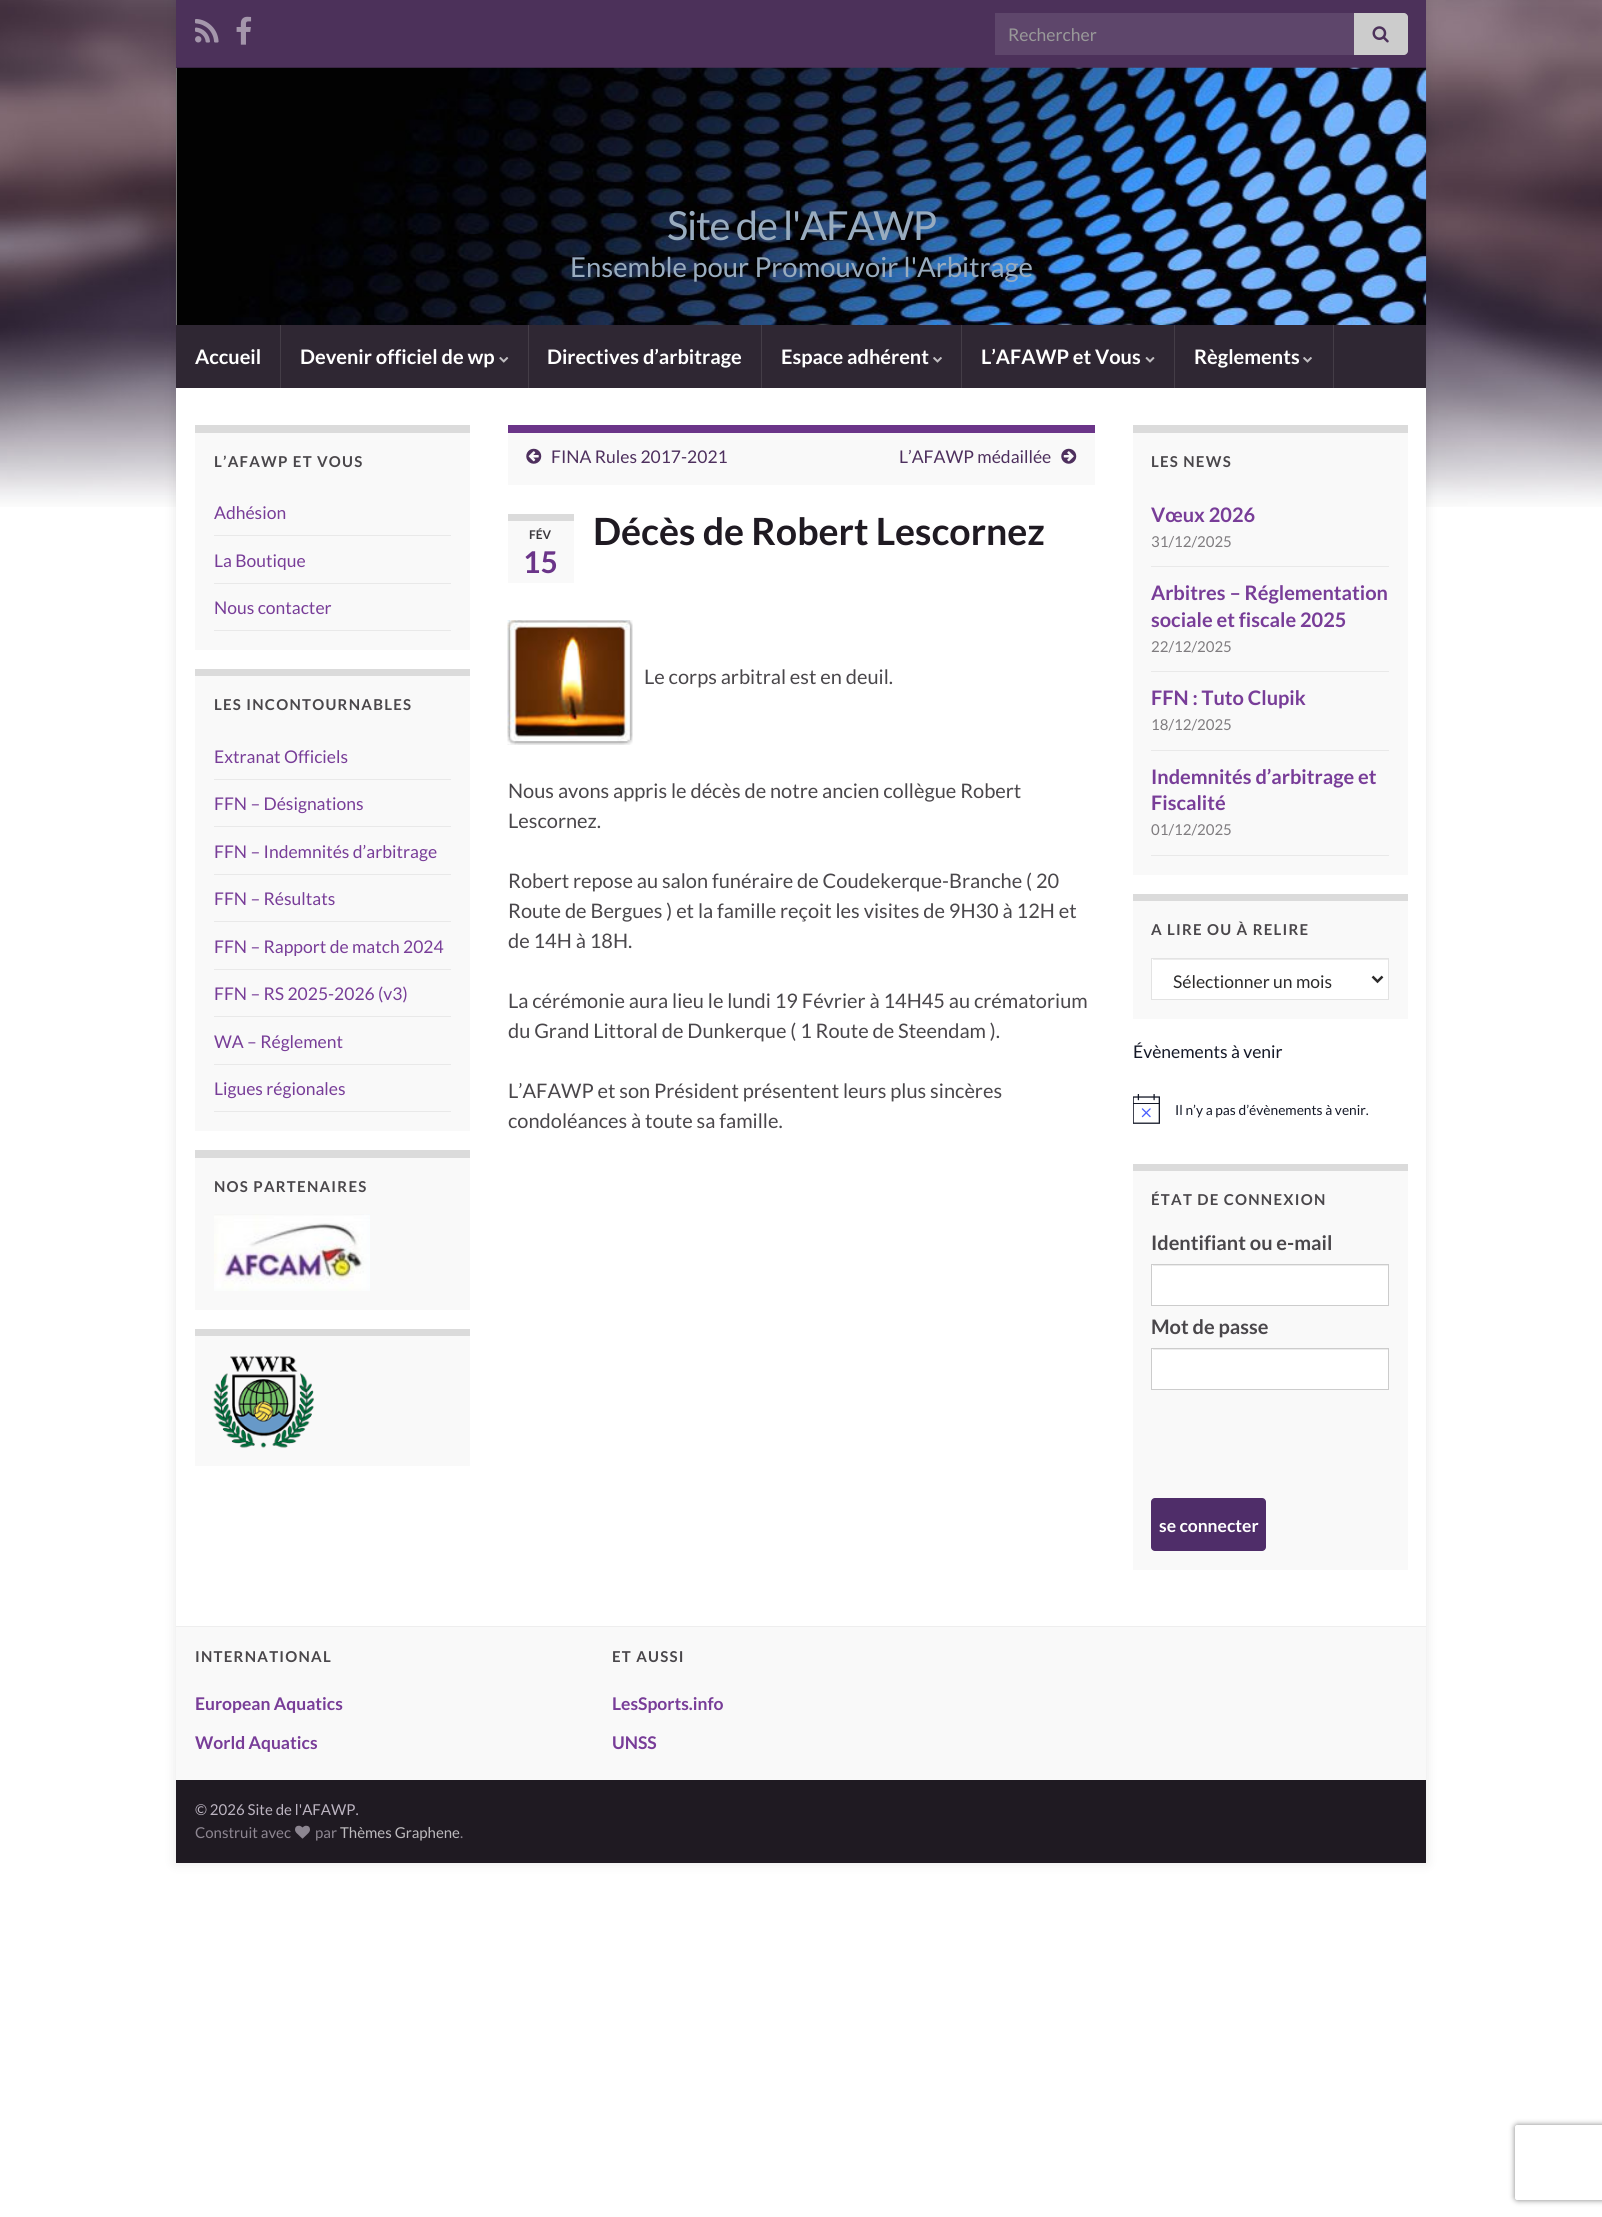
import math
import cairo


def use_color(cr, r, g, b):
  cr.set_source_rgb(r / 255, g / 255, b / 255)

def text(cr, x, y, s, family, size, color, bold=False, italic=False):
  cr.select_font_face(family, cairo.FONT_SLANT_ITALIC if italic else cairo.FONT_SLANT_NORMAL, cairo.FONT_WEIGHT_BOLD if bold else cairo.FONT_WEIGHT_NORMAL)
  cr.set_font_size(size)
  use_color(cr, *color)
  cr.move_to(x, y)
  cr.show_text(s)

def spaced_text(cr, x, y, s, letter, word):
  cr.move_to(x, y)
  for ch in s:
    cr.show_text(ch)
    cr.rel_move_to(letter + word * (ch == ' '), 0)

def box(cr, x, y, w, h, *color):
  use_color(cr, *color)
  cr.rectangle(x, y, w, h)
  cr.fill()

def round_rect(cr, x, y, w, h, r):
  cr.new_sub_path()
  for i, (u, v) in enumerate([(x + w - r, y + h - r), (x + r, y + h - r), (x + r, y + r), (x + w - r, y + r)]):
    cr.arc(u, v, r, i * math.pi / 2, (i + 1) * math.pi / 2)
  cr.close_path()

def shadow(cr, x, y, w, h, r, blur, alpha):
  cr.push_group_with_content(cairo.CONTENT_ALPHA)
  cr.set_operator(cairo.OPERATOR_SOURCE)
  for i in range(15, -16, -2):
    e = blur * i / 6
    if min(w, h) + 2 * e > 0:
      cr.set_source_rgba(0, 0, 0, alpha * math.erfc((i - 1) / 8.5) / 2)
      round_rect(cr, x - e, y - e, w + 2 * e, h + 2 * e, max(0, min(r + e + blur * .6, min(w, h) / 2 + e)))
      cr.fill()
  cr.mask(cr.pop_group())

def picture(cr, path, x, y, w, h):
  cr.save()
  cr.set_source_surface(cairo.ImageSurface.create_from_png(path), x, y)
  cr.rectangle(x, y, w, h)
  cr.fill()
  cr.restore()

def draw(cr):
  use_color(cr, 255, 255, 255)
  cr.paint()
  picture(cr, "img_01.png", 0, 0, 1602, 507)
  use_color(cr, 0, 0, 0)
  shadow(cr, 176, 0, 1250, 1863, 0, 6, 0.1)
  box(cr, 176, 0, 1250, 68, 76, 49, 90)
  picture(cr, "img_02.png", 195, 19, 24, 24)
  picture(cr, "img_03.png", 236, 16, 16, 29)
  box(cr, 995, 13, 359, 42, 94, 70, 107)
  use_color(cr, 204, 204, 204)
  cr.new_path()
  cr.move_to(1354, 13)
  cr.line_to(1404, 13)
  cr.curve_to(1406, 13, 1408, 15, 1408, 17)
  cr.line_to(1408, 51)
  cr.curve_to(1408, 53, 1406, 55, 1404, 55)
  cr.line_to(1354, 55)
  cr.close_path()
  cr.fill()
  picture(cr, "img_04.png", 1372, 26, 17, 17)
  box(cr, 176, 68, 1, 257, 255, 255, 255)
  picture(cr, "img_05.png", 176, 67, 1251, 258)
  box(cr, 176, 325, 1250, 63, 47, 39, 51)
  box(cr, 280, 325, 1, 63, 68, 61, 71)
  box(cr, 528, 325, 1, 63, 68, 61, 71)
  picture(cr, "img_06.png", 499, 357, 10, 6)
  box(cr, 761, 325, 1, 63, 68, 61, 71)
  box(cr, 961, 325, 1, 63, 68, 61, 71)
  picture(cr, "img_07.png", 933, 357, 9, 6)
  box(cr, 1174, 325, 1, 63, 68, 61, 71)
  picture(cr, "img_08.png", 1145, 357, 10, 6)
  box(cr, 1333, 325, 1, 63, 68, 61, 71)
  picture(cr, "img_07.png", 1303, 357, 9, 6)
  box(cr, 176, 388, 1250, 1238, 255, 255, 255)
  box(cr, 195, 433, 275, 217, 249, 249, 249)
  box(cr, 195, 425, 275, 8, 219, 219, 219)
  box(cr, 214, 535, 237, 1, 233, 233, 233)
  box(cr, 214, 583, 237, 1, 233, 233, 233)
  box(cr, 214, 630, 237, 1, 233, 233, 233)
  box(cr, 195, 676, 275, 455, 249, 249, 249)
  box(cr, 195, 669, 275, 7, 219, 219, 219)
  box(cr, 214, 779, 237, 1, 233, 233, 233)
  box(cr, 214, 826, 237, 1, 233, 233, 233)
  box(cr, 214, 874, 237, 1, 233, 233, 233)
  box(cr, 214, 921, 237, 1, 233, 233, 233)
  box(cr, 214, 969, 237, 1, 233, 233, 233)
  box(cr, 214, 1016, 237, 1, 233, 233, 233)
  box(cr, 214, 1064, 237, 1, 233, 233, 233)
  box(cr, 214, 1111, 237, 1, 233, 233, 233)
  box(cr, 195, 1158, 275, 152, 249, 249, 249)
  box(cr, 195, 1150, 275, 8, 219, 219, 219)
  picture(cr, "img_09.png", 214, 1214, 156, 77)
  box(cr, 195, 1336, 275, 130, 249, 249, 249)
  box(cr, 195, 1329, 275, 7, 219, 219, 219)
  picture(cr, "img_10.png", 213, 1356, 101, 92)
  box(cr, 508, 433, 587, 52, 249, 249, 249)
  box(cr, 508, 425, 587, 8, 107, 53, 137)
  picture(cr, "img_11.png", 526, 448, 16, 16)
  picture(cr, "img_12.png", 1061, 448, 16, 16)
  box(cr, 508, 521, 66, 62, 249, 249, 249)
  box(cr, 508, 514, 66, 7, 219, 219, 219)
  picture(cr, "img_13.png", 507, 620, 126, 125)
  box(cr, 1133, 433, 275, 442, 249, 249, 249)
  box(cr, 1133, 425, 275, 8, 219, 219, 219)
  box(cr, 1151, 566, 238, 1, 233, 233, 233)
  box(cr, 1151, 671, 238, 1, 233, 233, 233)
  box(cr, 1151, 750, 238, 1, 233, 233, 233)
  box(cr, 1151, 855, 238, 1, 233, 233, 233)
  box(cr, 1133, 901, 275, 118, 249, 249, 249)
  box(cr, 1133, 894, 275, 7, 219, 219, 219)
  box(cr, 1152, 959, 236, 40, 255, 255, 255)
  box(cr, 1153, 959, 235, 1, 236, 236, 236)
  cr.rectangle(1151.5, 958.5, 237, 41)
  use_color(cr, 227, 227, 227)
  cr.set_line_width(1)
  cr.stroke()
  cr.new_path()
  cr.move_to(1372.5, 976.5)
  cr.line_to(1377.5, 981.5)
  cr.line_to(1382.5, 976.5)
  use_color(cr, 44, 43, 43)
  cr.set_line_width(2.5)
  cr.stroke()
  picture(cr, "img_14.png", 1133, 1094, 27, 30)
  box(cr, 1133, 1171, 275, 399, 249, 249, 249)
  box(cr, 1133, 1164, 275, 7, 219, 219, 219)
  box(cr, 1152, 1265, 236, 40, 255, 255, 255)
  box(cr, 1153, 1265, 235, 1, 236, 236, 236)
  cr.rectangle(1151.5, 1264.5, 237, 41)
  use_color(cr, 204, 204, 204)
  cr.set_line_width(1)
  cr.stroke()
  box(cr, 1152, 1349, 236, 40, 255, 255, 255)
  box(cr, 1153, 1349, 235, 1, 236, 236, 236)
  cr.rectangle(1151.5, 1348.5, 237, 41)
  use_color(cr, 204, 204, 204)
  cr.stroke()
  use_color(cr, 79, 45, 105)
  round_rect(cr, 1151, 1498, 115, 53, 4)
  cr.fill()
  box(cr, 176, 1627, 1250, 153, 249, 249, 249)
  box(cr, 176, 1626, 1250, 1, 238, 238, 238)
  box(cr, 176, 1780, 1250, 83, 31, 26, 34)
  picture(cr, "img_15.png", 295, 1825, 15, 14)
  cr.save()
  cr.set_fill_rule(cairo.FILL_RULE_EVEN_ODD)
  cr.new_path()
  cr.move_to(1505, 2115)
  cr.line_to(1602, 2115)
  cr.line_to(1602, 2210)
  cr.line_to(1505, 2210)
  cr.close_path()
  cr.move_to(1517.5, 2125)
  cr.line_to(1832.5, 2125)
  cr.curve_to(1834, 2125, 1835, 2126, 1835, 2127.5)
  cr.line_to(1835, 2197.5)
  cr.curve_to(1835, 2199, 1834, 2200, 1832.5, 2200)
  cr.line_to(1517.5, 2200)
  cr.curve_to(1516, 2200, 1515, 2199, 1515, 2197.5)
  cr.line_to(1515, 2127.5)
  cr.curve_to(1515, 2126, 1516, 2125, 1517.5, 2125)
  cr.close_path()
  cr.clip()
  use_color(cr, 128, 128, 128)
  shadow(cr, 1515, 2125, 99, 75, 2.5, 3, 1)
  cr.restore()
  text(cr, 1008, 41, "Rechercher", "Lato", 17.5, (153, 153, 153))
  cr.set_font_size(40)
  use_color(cr, 153, 172, 191)
  spaced_text(cr, 667, 240, "Site de l'AFAWP", -1.25, 0)
  text(cr, 570, 277, "Ensemble pour Promouvoir l'Arbitrage", "Lato", 27.5, (153, 172, 191))
  text(cr, 195, 364, "Accueil", "Lato", 20, (255, 255, 255), bold=True)
  text(cr, 300, 364, "Devenir officiel de wp", "Lato", 20, (255, 255, 255), bold=True)
  text(cr, 547, 364, "Directives d’arbitrage", "Lato", 20, (255, 255, 255), bold=True)
  text(cr, 781, 364, "Espace adhérent", "Lato", 20, (255, 255, 255), bold=True)
  text(cr, 981, 364, "L’AFAWP et Vous", "Lato", 20, (255, 255, 255), bold=True)
  text(cr, 1194, 364, "Règlements", "Lato", 20, (255, 255, 255), bold=True)
  cr.set_font_size(15)
  use_color(cr, 74, 71, 75)
  spaced_text(cr, 214, 467, "L’AFAWP ET VOUS", 1.25, 0)
  text(cr, 214, 519, "Adhésion", "Lato", 17.5, (120, 61, 152))
  text(cr, 214, 567, "La Boutique", "Lato", 17.5, (120, 61, 152))
  text(cr, 214, 614, "Nous contacter", "Lato", 17.5, (120, 61, 152))
  cr.select_font_face("Lato", cairo.FONT_SLANT_NORMAL, cairo.FONT_WEIGHT_BOLD)
  cr.set_font_size(15)
  use_color(cr, 74, 71, 75)
  spaced_text(cr, 214, 710, "LES INCONTOURNABLES", 1.25, 0)
  text(cr, 214, 763, "Extranat Officiels", "Lato", 17.5, (120, 61, 152))
  text(cr, 214, 810, "FFN – Désignations", "Lato", 17.5, (120, 61, 152))
  text(cr, 214, 858, "FFN – Indemnités d’arbitrage", "Lato", 17.5, (120, 61, 152))
  text(cr, 214, 905, "FFN – Résultats", "Lato", 17.5, (120, 61, 152))
  text(cr, 214, 953, "FFN – Rapport de match 2024", "Lato", 17.5, (120, 61, 152))
  text(cr, 214, 1000, "FFN – RS 2025-2026 (v3)", "Lato", 17.5, (120, 61, 152))
  text(cr, 214, 1048, "WA – Réglement", "Lato", 17.5, (120, 61, 152))
  text(cr, 214, 1095, "Ligues régionales", "Lato", 17.5, (120, 61, 152))
  cr.select_font_face("Lato", cairo.FONT_SLANT_NORMAL, cairo.FONT_WEIGHT_BOLD)
  cr.set_font_size(15)
  use_color(cr, 74, 71, 75)
  spaced_text(cr, 214, 1192, "NOS PARTENAIRES", 1.25, 0)
  text(cr, 551, 463, "FINA Rules 2017-2021", "Lato", 17.5, (78, 48, 94))
  text(cr, 899, 463, "L’AFAWP médaillée", "Lato", 17.5, (78, 48, 94))
  text(cr, 529, 539, "FÉV", "Lato", 12, (59, 56, 61), bold=True)
  text(cr, 523, 573, "15", "Lato", 30, (107, 53, 137), bold=True)
  text(cr, 593, 545, "Décès de Robert Lescornez", "Lato", 37.5, (31, 26, 34), bold=True)
  text(cr, 644, 684, "Le corps arbitral est en deuil.", "Lato", 20, (74, 71, 75))
  text(cr, 508, 798, "Nous avons appris le décès de notre ancien collègue Robert", "Lato", 20, (74, 71, 75))
  text(cr, 508, 828, "Lescornez.", "Lato", 20, (74, 71, 75))
  text(cr, 508, 888, "Robert repose au salon funéraire de Coudekerque-Branche ( 20", "Lato", 20, (74, 71, 75))
  text(cr, 508, 918, "Route de Bergues ) et la famille reçoit les visites de 9H30 à 12H et", "Lato", 20, (74, 71, 75))
  text(cr, 508, 948, "de 14H à 18H.", "Lato", 20, (74, 71, 75))
  text(cr, 508, 1008, "La cérémonie aura lieu le lundi 19 Février à 14H45 au crématorium", "Lato", 20, (74, 71, 75))
  text(cr, 508, 1038, "du Grand Littoral de Dunkerque ( 1 Route de Steendam ).", "Lato", 20, (74, 71, 75))
  text(cr, 508, 1098, "L’AFAWP et son Président présentent leurs plus sincères", "Lato", 20, (74, 71, 75))
  text(cr, 508, 1128, "condoléances à toute sa famille.", "Lato", 20, (74, 71, 75))
  cr.select_font_face("Lato", cairo.FONT_SLANT_NORMAL, cairo.FONT_WEIGHT_BOLD)
  cr.set_font_size(15)
  spaced_text(cr, 1151, 467, "LES NEWS", 1.25, 0)
  text(cr, 1151, 522, "Vœux 2026", "Lato", 20, (120, 61, 152), bold=True)
  text(cr, 1151, 547, "31/12/2025", "Lato", 15, (127, 124, 127))
  text(cr, 1151, 600, "Arbitres – Réglementation", "Lato", 20, (120, 61, 152), bold=True)
  text(cr, 1151, 627, "sociale et fiscale 2025", "Lato", 20, (120, 61, 152), bold=True)
  text(cr, 1151, 652, "22/12/2025", "Lato", 15, (127, 124, 127))
  text(cr, 1151, 705, "FFN : Tuto Clupik", "Lato", 20, (120, 61, 152), bold=True)
  text(cr, 1151, 730, "18/12/2025", "Lato", 15, (127, 124, 127))
  text(cr, 1151, 784, "Indemnités d’arbitrage et", "Lato", 20, (120, 61, 152), bold=True)
  text(cr, 1151, 810, "Fiscalité", "Lato", 20, (120, 61, 152), bold=True)
  text(cr, 1151, 835, "01/12/2025", "Lato", 15, (127, 124, 127))
  cr.select_font_face("Lato", cairo.FONT_SLANT_NORMAL, cairo.FONT_WEIGHT_BOLD)
  use_color(cr, 74, 71, 75)
  spaced_text(cr, 1151, 935, "A LIRE OU À RELIRE", 1.25, 0)
  text(cr, 1173, 988, "Sélectionner un mois", "Lato", 17.5, (44, 43, 43))
  text(cr, 1133, 1058, "Évènements à venir", "Lato", 17.5, (20, 24, 39))
  text(cr, 1175, 1115, "Il n’y a pas d’évènements à venir.", "Lato", 13.75, (20, 24, 39))
  cr.select_font_face("Lato", cairo.FONT_SLANT_NORMAL, cairo.FONT_WEIGHT_BOLD)
  cr.set_font_size(15)
  use_color(cr, 74, 71, 75)
  spaced_text(cr, 1151, 1205, "ÉTAT DE CONNEXION", 1.25, 0)
  text(cr, 1151, 1250, "Identifiant ou e-mail", "Lato", 20, (74, 71, 75), bold=True)
  text(cr, 1151, 1334, "Mot de passe", "Lato", 20, (74, 71, 75), bold=True)
  text(cr, 1159, 1532, "se connecter", "Lato", 17.5, (255, 255, 255), bold=True)
  cr.set_font_size(15)
  use_color(cr, 74, 71, 75)
  spaced_text(cr, 195, 1662, "INTERNATIONAL", 1.25, 0)
  text(cr, 195, 1710, "European Aquatics", "Lato", 17.5, (120, 61, 152), bold=True)
  text(cr, 195, 1749, "World Aquatics", "Lato", 17.5, (120, 61, 152), bold=True)
  cr.set_font_size(15)
  use_color(cr, 74, 71, 75)
  spaced_text(cr, 612, 1662, "ET AUSSI", 1.25, 0)
  text(cr, 612, 1710, "LesSports.info", "Lato", 17.5, (120, 61, 152), bold=True)
  text(cr, 612, 1749, "UNSS", "Lato", 17.5, (120, 61, 152), bold=True)
  text(cr, 195, 1815, "© 2026 Site de l'AFAWP.", "Lato", 15, (188, 180, 193))
  text(cr, 195, 1838, "Construit avec", "Lato", 15, (141, 134, 145))
  text(cr, 315, 1838, "par", "Lato", 15, (141, 134, 145))
  text(cr, 340, 1838, "Thèmes Graphene", "Lato", 15, (188, 186, 189))
  text(cr, 460, 1838, ".", "Lato", 15, (141, 134, 145))


surface = cairo.ImageSurface(cairo.FORMAT_RGB24, 1602, 2217)
cr = cairo.Context(surface)
options = cairo.FontOptions()
options.set_hint_metrics(cairo.HINT_METRICS_OFF)
options.set_hint_style(cairo.HINT_STYLE_NONE)
cr.set_font_options(options)
cr.set_miter_limit(4)
draw(cr)
surface.write_to_png("out.png")
